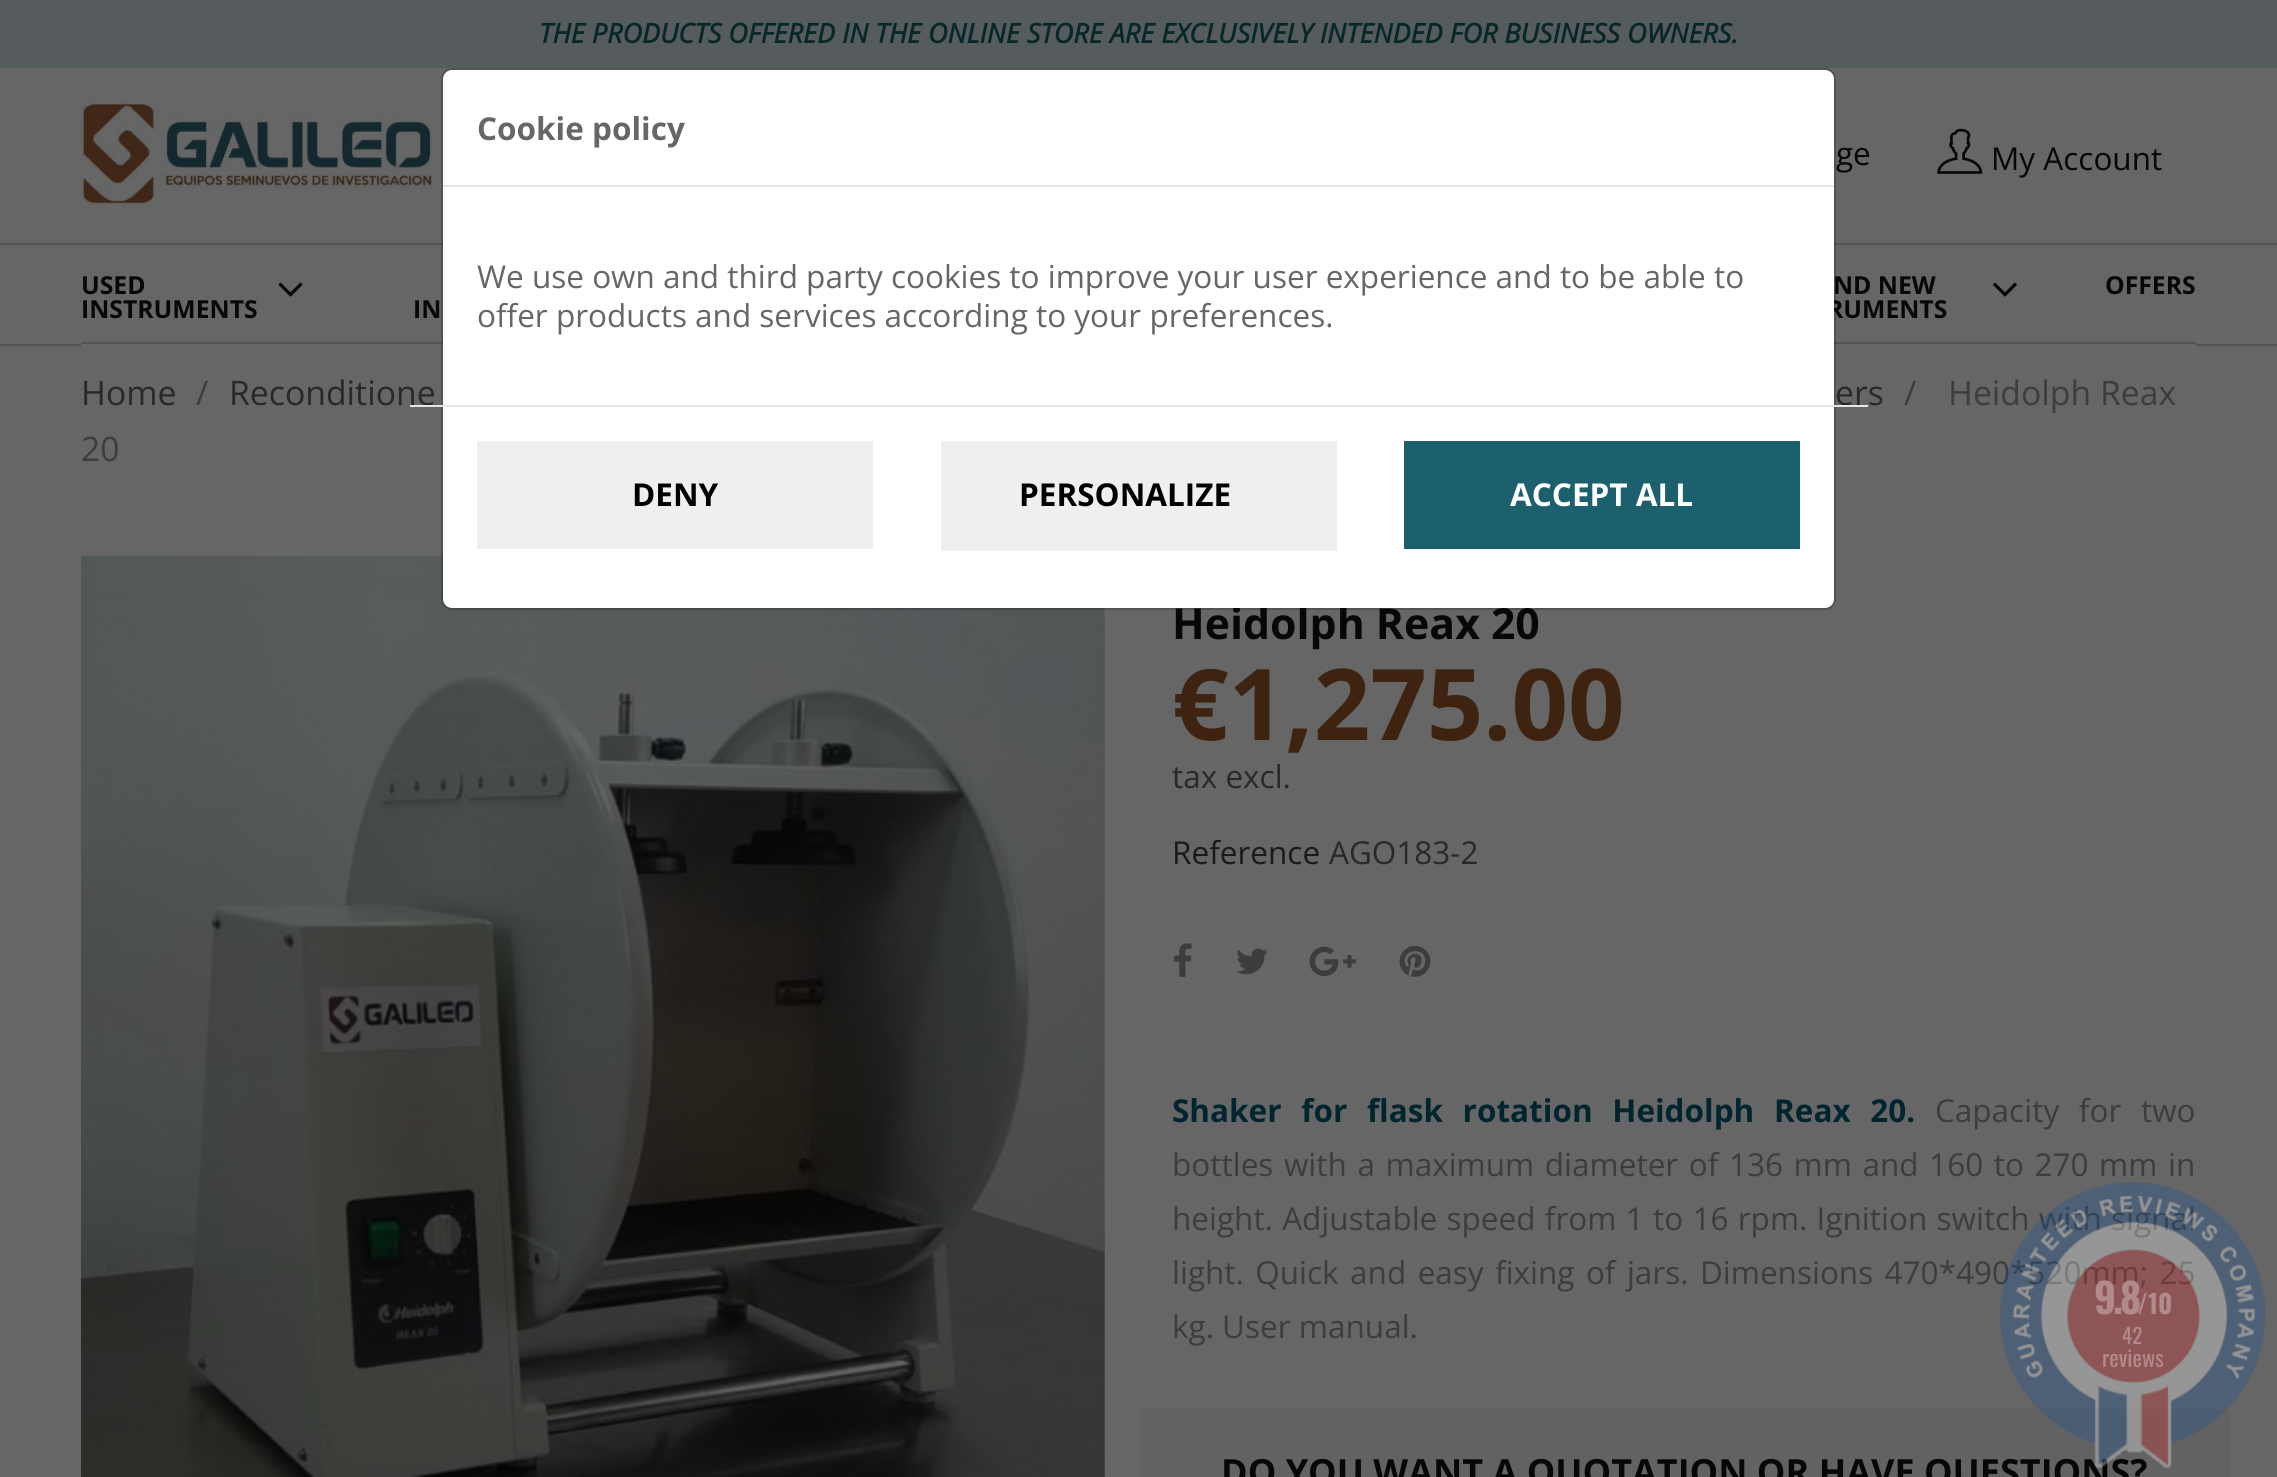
import math
import cairo


def use_color(cr, r, g, b):
  cr.set_source_rgb(r / 255, g / 255, b / 255)

def text(cr, x, y, s, family, size, color, bold=False, italic=False):
  cr.select_font_face(family, cairo.FONT_SLANT_ITALIC if italic else cairo.FONT_SLANT_NORMAL, cairo.FONT_WEIGHT_BOLD if bold else cairo.FONT_WEIGHT_NORMAL)
  cr.set_font_size(size)
  use_color(cr, *color)
  cr.move_to(x, y)
  cr.show_text(s)

def spaced_text(cr, x, y, s, letter, word):
  cr.move_to(x, y)
  for ch in s:
    cr.show_text(ch)
    cr.rel_move_to(letter + word * (ch == ' '), 0)

def box(cr, x, y, w, h, *color):
  use_color(cr, *color)
  cr.rectangle(x, y, w, h)
  cr.fill()

def round_rect(cr, x, y, w, h, r):
  cr.new_sub_path()
  for i, (u, v) in enumerate([(x + w - r, y + h - r), (x + r, y + h - r), (x + r, y + r), (x + w - r, y + r)]):
    cr.arc(u, v, r, i * math.pi / 2, (i + 1) * math.pi / 2)
  cr.close_path()

def picture(cr, path, x, y, w, h):
  cr.save()
  cr.set_source_surface(cairo.ImageSurface.create_from_png(path), x, y)
  cr.rectangle(x, y, w, h)
  cr.fill()
  cr.restore()

def draw(cr):
  use_color(cr, 102, 102, 102)
  cr.paint()
  box(cr, 0, 0, 2277, 68, 86, 92, 93)
  picture(cr, "img_01.png", 81, 101, 352, 104)
  picture(cr, "img_02.png", 1937, 128, 46, 46)
  box(cr, 0, 243, 2277, 2, 82, 82, 82)
  box(cr, 81, 342, 2115, 2, 82, 82, 82)
  picture(cr, "img_03.png", 278, 282, 25, 15)
  picture(cr, "img_04.png", 1993, 282, 24, 15)
  box(cr, 0, 344, 81, 2, 82, 82, 82)
  box(cr, 2196, 344, 81, 2, 82, 82, 82)
  picture(cr, "img_05.png", 81, 555, 1024, 922)
  picture(cr, "img_06.png", 1174, 943, 18, 34)
  picture(cr, "img_07.png", 1236, 948, 32, 27)
  picture(cr, "img_08.png", 1309, 946, 47, 31)
  picture(cr, "img_09.png", 1399, 946, 32, 31)
  box(cr, 1139, 1409, 1091, 68, 98, 98, 98)
  text(cr, 539, 43, "THE PRODUCTS OFFERED IN THE ONLINE STORE ARE EXCLUSIVELY INTENDED FOR BUSINESS OWNERS.", "Open Sans", 27, (7, 39, 41), bold=True, italic=True)
  text(cr, 1836, 165, "ge", "Open Sans", 31.5, (7, 7, 7))
  text(cr, 1991, 170, "My Account", "Open Sans", 31.5, (7, 7, 7))
  text(cr, 81, 294, "USED", "Open Sans", 24.75, (7, 7, 7), bold=True)
  text(cr, 81, 318, "INSTRUMENTS", "Open Sans", 24.75, (7, 7, 7), bold=True)
  text(cr, 1833, 294, "ND NEW", "Open Sans", 24.75, (7, 7, 7), bold=True)
  text(cr, 1827, 318, "RUMENTS", "Open Sans", 24.75, (7, 7, 7), bold=True)
  text(cr, 2105, 294, "OFFERS", "Open Sans", 24.75, (7, 7, 7), bold=True)
  text(cr, 413, 318, "IN", "Open Sans", 24.75, (7, 7, 7), bold=True)
  text(cr, 81, 405, "Home", "Open Sans", 33.75, (41, 41, 41))
  text(cr, 196, 405, "/", "Open Sans", 33.75, (61, 61, 61))
  text(cr, 229, 405, "Reconditione", "Open Sans", 33.75, (41, 41, 41))
  text(cr, 1835, 405, "ers", "Open Sans", 33.75, (41, 41, 41))
  text(cr, 1904, 405, "/", "Open Sans", 33.75, (61, 61, 61))
  text(cr, 1948, 405, "Heidolph Reax", "Open Sans", 33.75, (61, 61, 61))
  text(cr, 81, 461, "20", "Open Sans", 33.75, (61, 61, 61))
  text(cr, 1172, 639, "Heidolph Reax 20", "Open Sans", 42.75, (7, 7, 7), bold=True)
  text(cr, 1172, 740, "€1,275.00", "Open Sans", 99, (62, 36, 16), bold=True)
  text(cr, 1172, 788, "tax excl.", "Open Sans", 31.5, (41, 41, 41))
  text(cr, 1172, 864, "Reference", "Open Sans", 31.5, (26, 26, 26))
  text(cr, 1329, 864, "AGO183-2", "Open Sans", 31.5, (41, 41, 41))
  cr.select_font_face("Open Sans", cairo.FONT_SLANT_NORMAL, cairo.FONT_WEIGHT_BOLD)
  use_color(cr, 0, 37, 46)
  spaced_text(cr, 1172, 1122, "Shaker for flask rotation Heidolph Reax 20.", 0, 11.5)
  cr.select_font_face("Open Sans")
  use_color(cr, 61, 61, 61)
  spaced_text(cr, 1935, 1122, "Capacity for two", 0, 11.5)
  spaced_text(cr, 1172, 1176, "bottles with a maximum diameter of 136 mm and 160 to 270 mm in", 0, 2.4)
  spaced_text(cr, 1172, 1230, "height. Adjustable speed from 1 to 16 rpm. Ignition switch with signal", 0, 1.1)
  spaced_text(cr, 1172, 1284, "light. Quick and easy fixing of jars. Dimensions 470*490*520mm; 25", 0, 3.25)
  text(cr, 1172, 1338, "kg. User manual.", "Open Sans", 31.5, (61, 61, 61))
  text(cr, 1221, 1485, "DO YOU WANT A QUOTATION OR HAVE QUESTIONS?", "Open Sans", 36, (7, 7, 7), bold=True)
  use_color(cr, 255, 255, 255)
  round_rect(cr, 443, 70, 1391, 538, 9)
  cr.fill()
  round_rect(cr, 442, 69, 1393, 540, 10)
  cr.set_source_rgba(0, 0, 0, 0.2)
  cr.stroke()
  box(cr, 443, 185, 1391, 2, 229, 229, 229)
  text(cr, 477, 140, "Cookie policy", "Open Sans", 31.5, (102, 102, 102), bold=True)
  text(cr, 477, 288, "We use own and third party cookies to improve your user experience and to be able to", "Open Sans", 31.5, (102, 102, 102))
  text(cr, 477, 327, "offer products and services according to your preferences.", "Open Sans", 31.5, (102, 102, 102))
  box(cr, 410, 405, 1458, 2, 229, 229, 229)
  box(cr, 477, 441, 396, 108, 239, 239, 239)
  text(cr, 632, 506, "DENY", "Open Sans", 31.5, (0, 0, 0), bold=True)
  box(cr, 941, 441, 396, 110, 239, 239, 239)
  text(cr, 1019, 506, "PERSONALIZE", "Open Sans", 31.5, (0, 0, 0), bold=True)
  box(cr, 1404, 441, 396, 108, 28, 96, 110)
  text(cr, 1510, 506, "ACCEPT ALL", "Open Sans", 31.5, (255, 255, 255), bold=True)
  picture(cr, "img_10.png", 2000, 1182, 266, 286)
  cr.select_font_face("Oswald", cairo.FONT_SLANT_NORMAL, cairo.FONT_WEIGHT_BOLD)
  cr.set_font_size(41)
  use_color(cr, 177, 138, 139)
  spaced_text(cr, 2094, 1314, "9.8", -3, 0)
  text(cr, 2137, 1314, "/10", "Oswald", 26, (177, 138, 139), bold=True)
  text(cr, 2122, 1344, "42", "Oswald", 21, (177, 138, 139))
  text(cr, 2102, 1367, "reviews", "Oswald", 22.5, (177, 138, 139))


surface = cairo.ImageSurface(cairo.FORMAT_RGB24, 2277, 1477)
cr = cairo.Context(surface)
options = cairo.FontOptions()
options.set_hint_metrics(cairo.HINT_METRICS_OFF)
options.set_hint_style(cairo.HINT_STYLE_NONE)
cr.set_font_options(options)
cr.set_miter_limit(4)
draw(cr)
surface.write_to_png("out.png")
